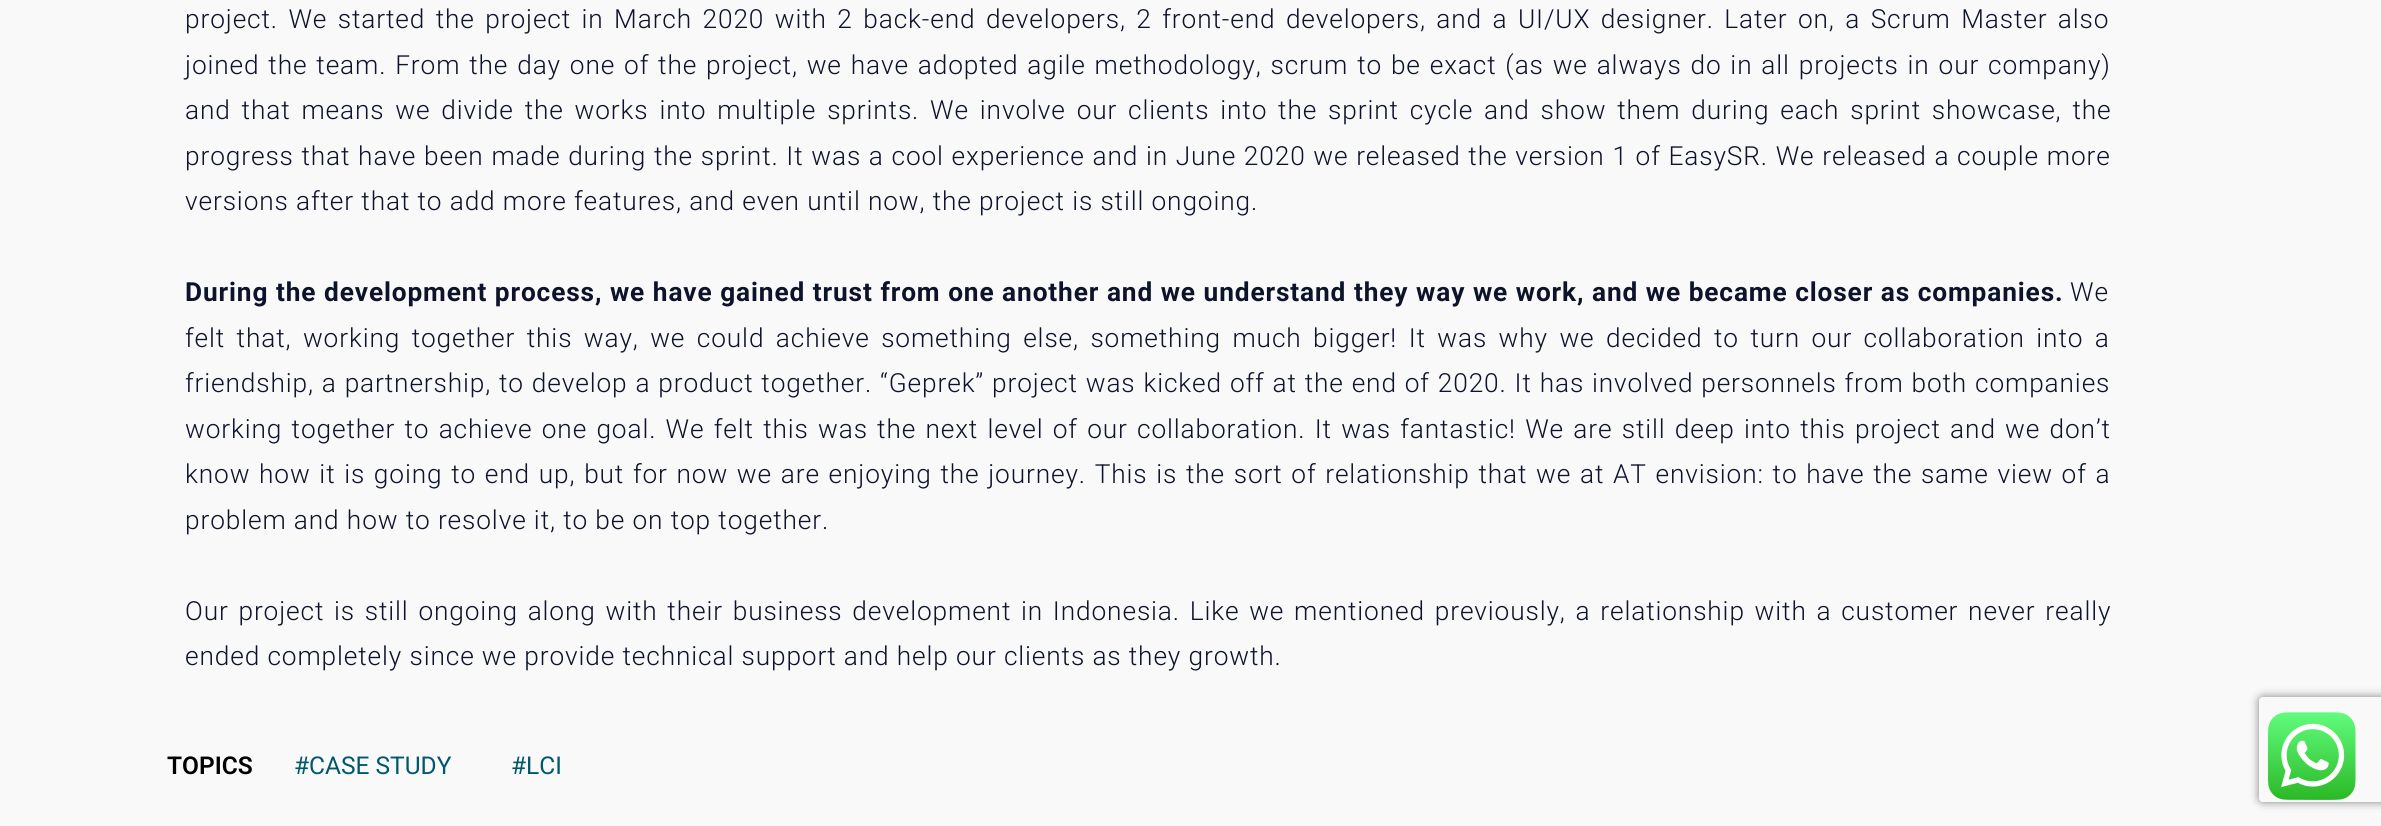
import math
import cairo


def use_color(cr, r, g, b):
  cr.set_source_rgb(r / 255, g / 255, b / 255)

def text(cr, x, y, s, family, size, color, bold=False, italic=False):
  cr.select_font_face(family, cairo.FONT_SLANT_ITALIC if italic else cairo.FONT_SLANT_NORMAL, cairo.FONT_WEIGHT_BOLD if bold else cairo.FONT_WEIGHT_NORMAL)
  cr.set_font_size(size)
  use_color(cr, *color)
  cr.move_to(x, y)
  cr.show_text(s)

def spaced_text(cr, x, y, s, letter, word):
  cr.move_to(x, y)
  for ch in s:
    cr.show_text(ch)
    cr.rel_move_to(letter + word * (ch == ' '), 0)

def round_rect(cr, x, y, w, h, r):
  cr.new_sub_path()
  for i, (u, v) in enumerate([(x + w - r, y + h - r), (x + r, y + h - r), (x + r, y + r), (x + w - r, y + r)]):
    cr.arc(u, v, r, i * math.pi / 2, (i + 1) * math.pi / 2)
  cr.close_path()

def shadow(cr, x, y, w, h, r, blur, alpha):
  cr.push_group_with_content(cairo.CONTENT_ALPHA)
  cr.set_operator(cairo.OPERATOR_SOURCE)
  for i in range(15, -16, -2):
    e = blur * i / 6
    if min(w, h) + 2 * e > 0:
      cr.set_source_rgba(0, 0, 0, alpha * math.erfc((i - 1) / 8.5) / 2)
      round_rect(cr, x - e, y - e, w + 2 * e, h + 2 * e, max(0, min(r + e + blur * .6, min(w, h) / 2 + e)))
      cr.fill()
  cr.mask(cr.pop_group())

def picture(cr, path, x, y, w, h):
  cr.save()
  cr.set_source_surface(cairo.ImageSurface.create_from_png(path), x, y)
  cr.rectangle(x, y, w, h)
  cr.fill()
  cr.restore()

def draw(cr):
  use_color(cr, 249, 249, 249)
  cr.paint()
  cr.save()
  cr.set_fill_rule(cairo.FILL_RULE_EVEN_ODD)
  cr.new_path()
  cr.move_to(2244, 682)
  cr.line_to(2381, 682)
  cr.line_to(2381, 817)
  cr.line_to(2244, 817)
  cr.close_path()
  cr.move_to(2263, 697)
  cr.line_to(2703, 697)
  cr.curve_to(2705, 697, 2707, 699, 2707, 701)
  cr.line_to(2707, 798)
  cr.curve_to(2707, 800, 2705, 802, 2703, 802)
  cr.line_to(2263, 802)
  cr.curve_to(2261, 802, 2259, 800, 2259, 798)
  cr.line_to(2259, 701)
  cr.curve_to(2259, 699, 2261, 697, 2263, 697)
  cr.close_path()
  cr.clip()
  use_color(cr, 128, 128, 128)
  shadow(cr, 2259, 697, 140, 105, 4, 4.5, 1)
  cr.restore()
  picture(cr, "img_01.png", 2268, 712, 88, 88)
  cr.select_font_face("Roboto Light")
  cr.set_font_size(26.25)
  use_color(cr, 13, 19, 42)
  spaced_text(cr, 185, 28, "project. We started the project in March 2020 with 2 back-end developers, 2 front-end developers, and a UI/UX designer. Later on, a Scrum Master also", 0.88, 3.2)
  spaced_text(cr, 185, 74, "joined the team. From the day one of the project, we have adopted agile methodology, scrum to be exact (as we always do in all projects in our company)", 0.88, 1.6)
  spaced_text(cr, 185, 119, "and that means we divide the works into multiple sprints. We involve our clients into the sprint cycle and show them during each sprint showcase, the", 0.88, 3.6)
  spaced_text(cr, 185, 165, "progress that have been made during the sprint. It was a cool experience and in June 2020 we released the version 1 of EasySR. We released a couple more", 0.88, 0.45)
  spaced_text(cr, 185, 210, "versions after that to add more features, and even until now, the project is still ongoing.", 0.88, 0)
  cr.select_font_face("Roboto", cairo.FONT_SLANT_NORMAL, cairo.FONT_WEIGHT_BOLD)
  spaced_text(cr, 185, 301, "During the development process, we have gained trust from one another and we understand they way we work, and we became closer as companies.", 0.88, 0.25)
  cr.select_font_face("Roboto Light")
  spaced_text(cr, 2070, 301, "We", 0.88, 0)
  spaced_text(cr, 185, 347, "felt that, working together this way, we could achieve something else, something much bigger! It was why we decided to turn our collaboration into a", 0.88, 4.2)
  spaced_text(cr, 185, 392, "friendship, a partnership, to develop a product together. “Geprek” project was kicked off at the end of 2020. It has involved personnels from both companies", 0.88, 0.6)
  spaced_text(cr, 185, 438, "working together to achieve one goal. We felt this was the next level of our collaboration. It was fantastic! We are still deep into this project and we don’t", 0.88, 2)
  spaced_text(cr, 185, 483, "know how it is going to end up, but for now we are enjoying the journey. This is the sort of relationship that we at AT envision: to have the same view of a", 0.88, 1.45)
  spaced_text(cr, 185, 529, "problem and how to resolve it, to be on top together.", 0.88, 0)
  spaced_text(cr, 185, 620, "Our project is still ongoing along with their business development in Indonesia. Like we mentioned previously, a relationship with a customer never really", 0.88, 2.5)
  spaced_text(cr, 185, 665, "ended completely since we provide technical support and help our clients as they growth.", 0.88, 0)
  text(cr, 167, 774, "TOPICS", "Roboto SemiBold", 24.5, (0, 0, 0))
  text(cr, 294, 774, "#CASE STUDY", "Roboto", 24.5, (0, 88, 108))
  text(cr, 511, 774, "#LCI", "Roboto", 24.5, (0, 88, 108))


surface = cairo.ImageSurface(cairo.FORMAT_RGB24, 2381, 826)
cr = cairo.Context(surface)
options = cairo.FontOptions()
options.set_hint_metrics(cairo.HINT_METRICS_OFF)
options.set_hint_style(cairo.HINT_STYLE_NONE)
cr.set_font_options(options)
cr.set_miter_limit(4)
draw(cr)
surface.write_to_png("out.png")
